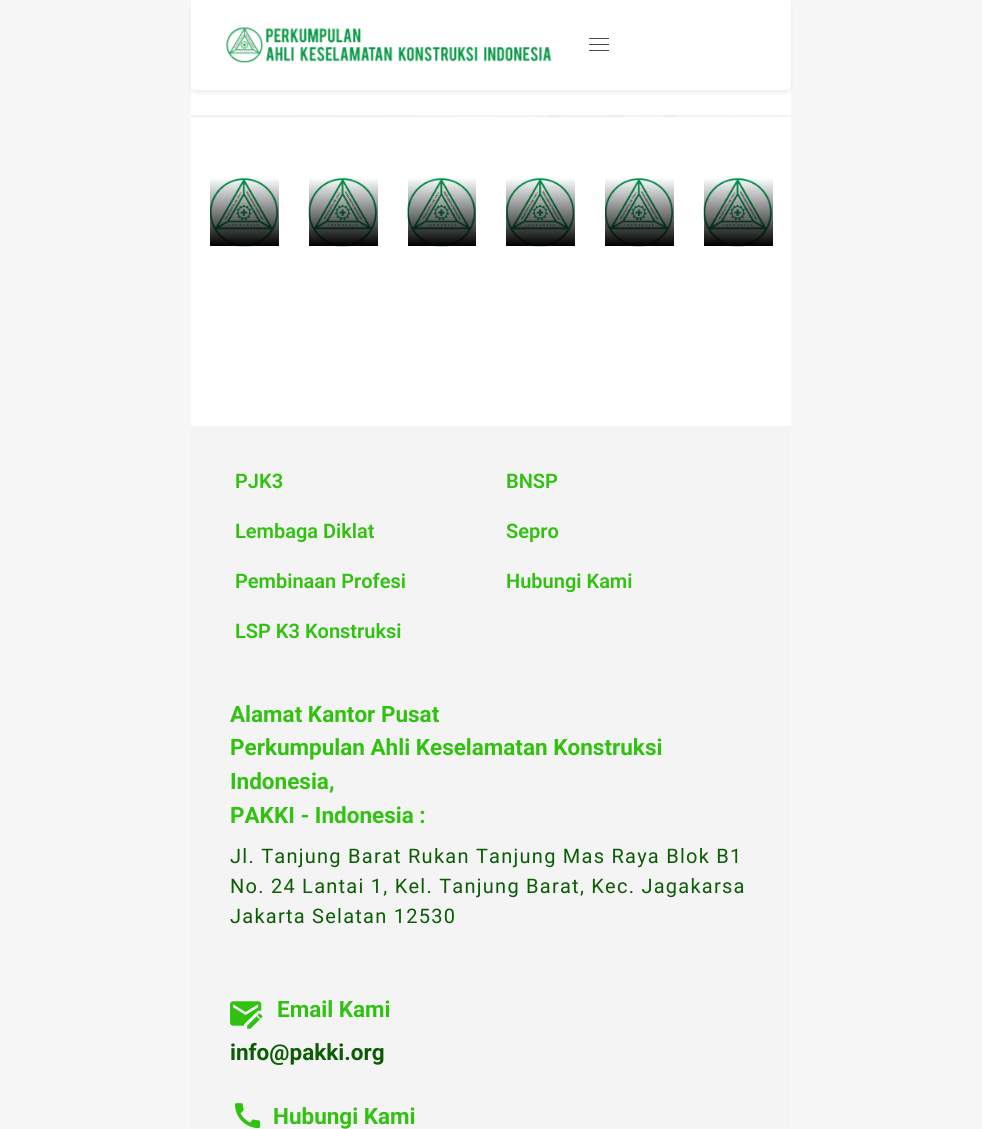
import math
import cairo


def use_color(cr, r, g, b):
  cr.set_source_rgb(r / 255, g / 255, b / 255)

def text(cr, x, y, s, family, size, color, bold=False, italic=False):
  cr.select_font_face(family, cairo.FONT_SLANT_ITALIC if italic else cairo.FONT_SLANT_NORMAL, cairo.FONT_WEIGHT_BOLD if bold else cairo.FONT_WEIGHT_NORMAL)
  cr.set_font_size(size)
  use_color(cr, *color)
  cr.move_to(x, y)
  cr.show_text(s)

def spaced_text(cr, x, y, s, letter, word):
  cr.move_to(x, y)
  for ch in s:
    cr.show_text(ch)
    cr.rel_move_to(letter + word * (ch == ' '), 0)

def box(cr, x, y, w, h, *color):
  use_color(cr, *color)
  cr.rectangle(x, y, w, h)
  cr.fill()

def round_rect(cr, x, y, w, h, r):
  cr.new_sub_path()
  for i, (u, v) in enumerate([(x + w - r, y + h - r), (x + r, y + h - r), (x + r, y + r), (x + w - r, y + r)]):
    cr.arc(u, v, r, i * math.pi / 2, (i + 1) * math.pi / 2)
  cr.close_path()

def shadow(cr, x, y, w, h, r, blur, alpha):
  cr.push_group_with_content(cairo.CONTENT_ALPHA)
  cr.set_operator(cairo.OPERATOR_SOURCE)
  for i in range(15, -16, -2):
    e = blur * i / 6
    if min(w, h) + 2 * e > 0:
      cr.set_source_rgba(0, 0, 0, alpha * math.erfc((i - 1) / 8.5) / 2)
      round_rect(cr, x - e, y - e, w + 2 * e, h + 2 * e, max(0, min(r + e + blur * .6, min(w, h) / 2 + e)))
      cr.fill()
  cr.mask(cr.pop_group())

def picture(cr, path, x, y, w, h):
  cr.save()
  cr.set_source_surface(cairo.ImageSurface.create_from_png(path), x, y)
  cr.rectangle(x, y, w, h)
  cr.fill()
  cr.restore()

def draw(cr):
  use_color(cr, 247, 247, 247)
  cr.paint()
  box(cr, 191, 0, 600, 426, 255, 255, 255)
  use_color(cr, 0, 0, 0)
  shadow(cr, 191, 3, 600, 90, 5, 2.5, 0.07)
  use_color(cr, 255, 255, 255)
  round_rect(cr, 191, 0, 600, 90, 5)
  cr.fill()
  picture(cr, "img_01.png", 226, 27, 326, 36)
  box(cr, 589, 38, 20, 1, 74, 74, 74)
  box(cr, 589, 44, 20, 1, 74, 74, 74)
  box(cr, 589, 50, 20, 1, 74, 74, 74)
  picture(cr, "img_02.png", 191, 115, 600, 3)
  picture(cr, "img_03.png", 210, 177, 69, 70)
  gradient = cairo.LinearGradient(244, 178, 244, 246)
  gradient.add_color_stop_rgba(0, 0, 0, 0, 0)
  gradient.add_color_stop_rgba(1, 0, 0, 0, 1)
  cr.set_source(gradient)
  cr.rectangle(210, 179, 69, 67)
  cr.fill()
  picture(cr, "img_04.png", 308, 177, 70, 70)
  gradient = cairo.LinearGradient(343, 178, 343, 246)
  gradient.add_color_stop_rgba(0, 0, 0, 0, 0)
  gradient.add_color_stop_rgba(1, 0, 0, 0, 1)
  cr.set_source(gradient)
  cr.rectangle(309, 179, 69, 67)
  cr.fill()
  picture(cr, "img_05.png", 407, 177, 69, 70)
  picture(cr, "img_06.png", 506, 177, 69, 70)
  gradient = cairo.LinearGradient(541, 178, 541, 246)
  gradient.add_color_stop_rgba(0, 0, 0, 0, 0)
  gradient.add_color_stop_rgba(1, 0, 0, 0, 1)
  cr.set_source(gradient)
  cr.rectangle(506, 179, 69, 67)
  cr.fill()
  picture(cr, "img_03.png", 605, 177, 69, 70)
  gradient = cairo.LinearGradient(639, 178, 639, 246)
  gradient.add_color_stop_rgba(0, 0, 0, 0, 0)
  gradient.add_color_stop_rgba(1, 0, 0, 0, 1)
  cr.set_source(gradient)
  cr.rectangle(605, 179, 69, 67)
  cr.fill()
  picture(cr, "img_04.png", 703, 177, 70, 70)
  gradient = cairo.LinearGradient(738, 178, 738, 246)
  gradient.add_color_stop_rgba(0, 0, 0, 0, 0)
  gradient.add_color_stop_rgba(1, 0, 0, 0, 1)
  cr.set_source(gradient)
  cr.rectangle(704, 179, 69, 67)
  cr.fill()
  box(cr, 191, 426, 600, 703, 244, 244, 244)
  picture(cr, "img_07.png", 230, 1001, 33, 28)
  picture(cr, "img_08.png", 235, 1103, 25, 26)
  text(cr, 235, 488, "PJK3", "Roboto SemiBold", 20, (49, 193, 16))
  text(cr, 235, 538, "Lembaga Diklat", "Roboto SemiBold", 20, (49, 193, 16))
  text(cr, 235, 588, "Pembinaan Profesi", "Roboto SemiBold", 20, (49, 193, 16))
  text(cr, 235, 638, "LSP K3 Konstruksi", "Roboto SemiBold", 20, (49, 193, 16))
  text(cr, 506, 488, "BNSP", "Roboto SemiBold", 20, (49, 193, 16))
  text(cr, 506, 538, "Sepro", "Roboto SemiBold", 20, (49, 193, 16))
  text(cr, 506, 588, "Hubungi Kami", "Roboto SemiBold", 20, (49, 193, 16))
  text(cr, 230, 722, "Alamat Kantor Pusat", "Roboto", 22.5, (49, 193, 16), bold=True)
  text(cr, 230, 755, "Perkumpulan Ahli Keselamatan Konstruksi", "Roboto", 22.5, (49, 193, 16), bold=True)
  text(cr, 230, 789, "Indonesia,", "Roboto", 22.5, (49, 193, 16), bold=True)
  text(cr, 230, 823, "PAKKI - Indonesia :", "Roboto", 22.5, (49, 193, 16), bold=True)
  cr.select_font_face("Roboto")
  cr.set_font_size(20)
  use_color(cr, 11, 92, 4)
  spaced_text(cr, 230, 863, "Jl. Tanjung Barat Rukan Tanjung Mas Raya Blok B1", 1.25, 0)
  spaced_text(cr, 230, 893, "No. 24 Lantai 1, Kel. Tanjung Barat, Kec. Jagakarsa", 1.25, 0)
  spaced_text(cr, 230, 923, "Jakarta Selatan 12530", 1.25, 0)
  text(cr, 277, 1017, "Email Kami", "Roboto", 22.5, (49, 193, 16), bold=True)
  text(cr, 230, 1060, "info@pakki.org", "Roboto", 22.5, (11, 92, 4), bold=True)
  text(cr, 273, 1124, "Hubungi Kami", "Roboto", 22.5, (49, 193, 16), bold=True)


surface = cairo.ImageSurface(cairo.FORMAT_RGB24, 982, 1129)
cr = cairo.Context(surface)
options = cairo.FontOptions()
options.set_hint_metrics(cairo.HINT_METRICS_OFF)
options.set_hint_style(cairo.HINT_STYLE_NONE)
cr.set_font_options(options)
cr.set_miter_limit(4)
draw(cr)
surface.write_to_png("out.png")
